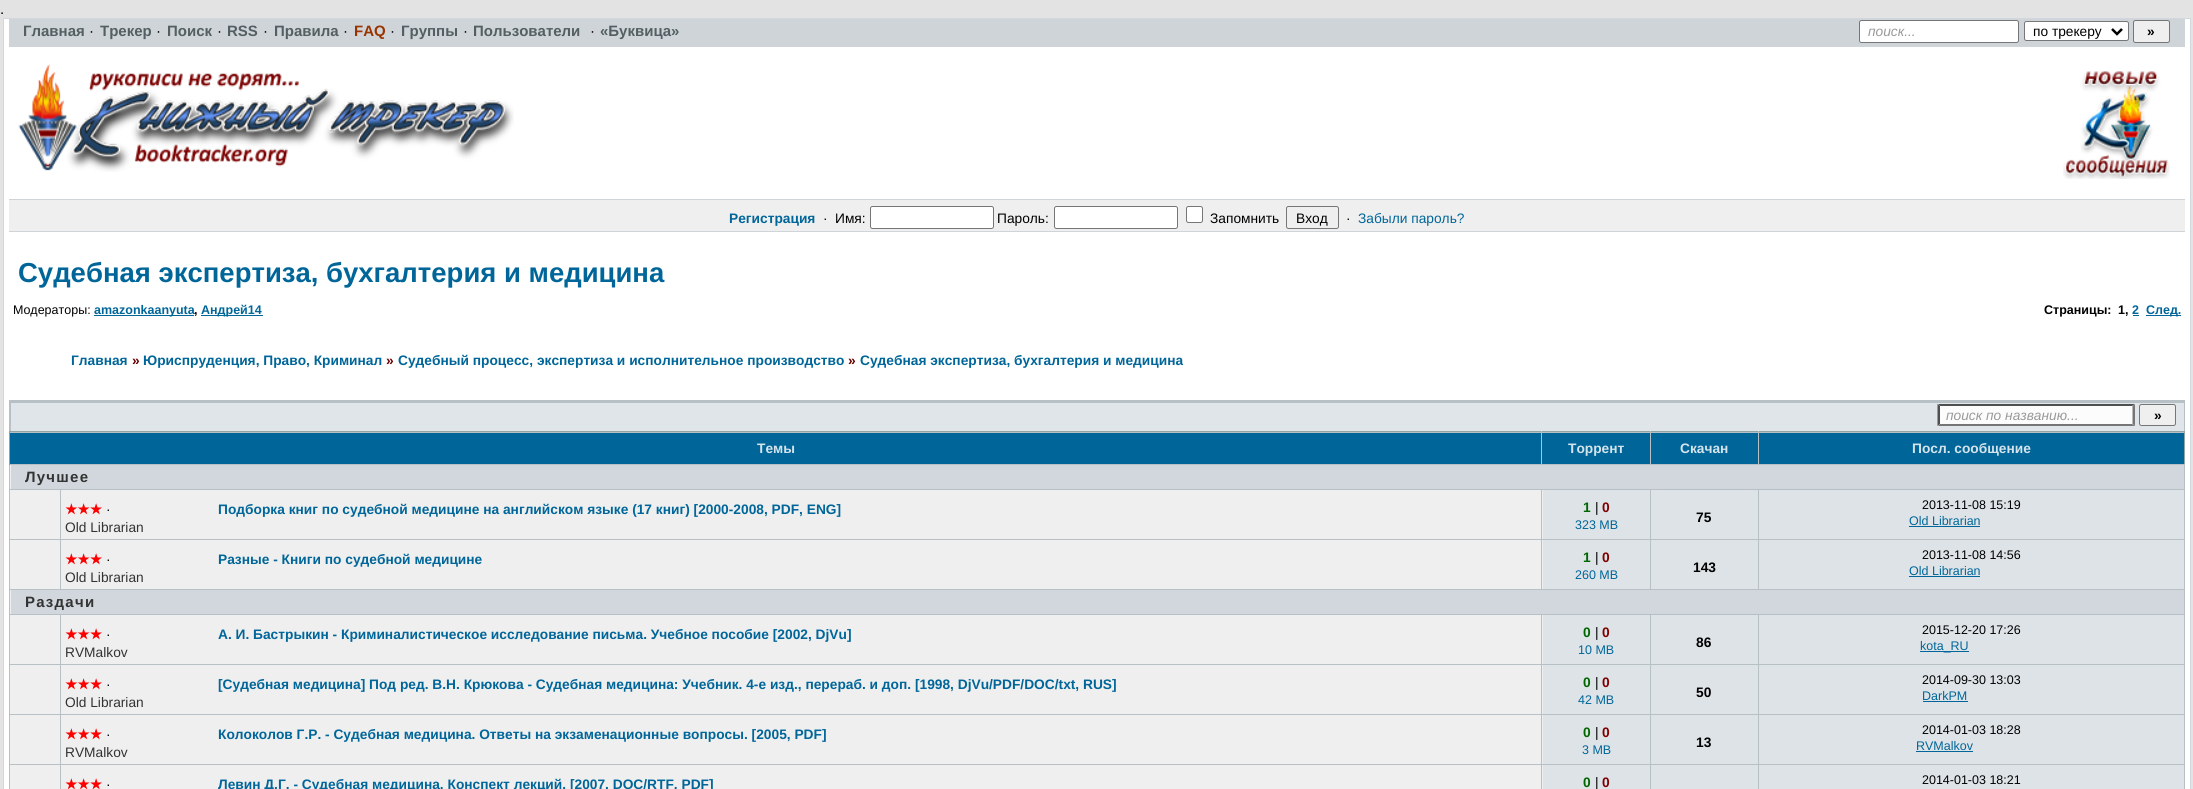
import math
import cairo


def use_color(cr, r, g, b):
  cr.set_source_rgb(r / 255, g / 255, b / 255)

def text(cr, x, y, s, family, size, color, bold=False, italic=False):
  cr.select_font_face(family, cairo.FONT_SLANT_ITALIC if italic else cairo.FONT_SLANT_NORMAL, cairo.FONT_WEIGHT_BOLD if bold else cairo.FONT_WEIGHT_NORMAL)
  cr.set_font_size(size)
  use_color(cr, *color)
  cr.move_to(x, y)
  cr.show_text(s)

def spaced_text(cr, x, y, s, letter, word):
  cr.move_to(x, y)
  for ch in s:
    cr.show_text(ch)
    cr.rel_move_to(letter + word * (ch == ' '), 0)

def box(cr, x, y, w, h, *color):
  use_color(cr, *color)
  cr.rectangle(x, y, w, h)
  cr.fill()

def round_rect(cr, x, y, w, h, r):
  cr.new_sub_path()
  for i, (u, v) in enumerate([(x + w - r, y + h - r), (x + r, y + h - r), (x + r, y + r), (x + w - r, y + r)]):
    cr.arc(u, v, r, i * math.pi / 2, (i + 1) * math.pi / 2)
  cr.close_path()

def picture(cr, path, x, y, w, h):
  cr.save()
  cr.set_source_surface(cairo.ImageSurface.create_from_png(path), x, y)
  cr.rectangle(x, y, w, h)
  cr.fill()
  cr.restore()

def draw(cr):
  use_color(cr, 227, 227, 227)
  cr.paint()
  use_color(cr, 255, 255, 255)
  cr.rectangle(3.5, 18.5, 2187, 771)
  cr.fill_preserve()
  use_color(cr, 209, 215, 220)
  cr.set_line_width(1)
  cr.stroke()
  box(cr, 9, 19, 2176, 28, 207, 212, 216)
  use_color(cr, 255, 255, 255)
  round_rect(cr, 1859.5, 20.5, 159, 22, 2)
  cr.fill_preserve()
  use_color(cr, 118, 118, 118)
  cr.stroke()
  use_color(cr, 255, 255, 255)
  round_rect(cr, 2024.5, 21.5, 104, 19, 2)
  cr.fill_preserve()
  use_color(cr, 118, 118, 118)
  cr.stroke()
  cr.new_path()
  cr.move_to(2112, 29)
  cr.line_to(2117, 34)
  cr.line_to(2122, 29)
  use_color(cr, 0, 0, 0)
  cr.set_line_width(2.5)
  cr.stroke()
  use_color(cr, 239, 239, 239)
  round_rect(cr, 2133.5, 20.5, 36, 22, 2)
  cr.fill_preserve()
  use_color(cr, 118, 118, 118)
  cr.set_line_width(1)
  cr.stroke()
  picture(cr, "img_01.png", 18, 64, 496, 108)
  picture(cr, "img_02.png", 2063, 71, 107, 108)
  box(cr, 9, 200, 2176, 31, 239, 239, 239)
  box(cr, 9, 199, 2176, 1, 207, 212, 216)
  box(cr, 9, 231, 2176, 1, 207, 212, 216)
  use_color(cr, 255, 255, 255)
  round_rect(cr, 870.5, 206.5, 123, 22, 2)
  cr.fill_preserve()
  use_color(cr, 118, 118, 118)
  cr.stroke()
  use_color(cr, 255, 255, 255)
  round_rect(cr, 1054.5, 206.5, 123, 22, 2)
  cr.fill_preserve()
  use_color(cr, 118, 118, 118)
  cr.stroke()
  use_color(cr, 255, 255, 255)
  round_rect(cr, 1186.5, 206.5, 16, 16, 2)
  cr.fill_preserve()
  use_color(cr, 118, 118, 118)
  cr.stroke()
  round_rect(cr, 1286.5, 206.5, 52, 22, 2)
  cr.stroke()
  box(cr, 94, 315, 100, 1, 0, 102, 153)
  box(cr, 201, 315, 62, 1, 0, 102, 153)
  box(cr, 2133, 315, 6, 1, 0, 102, 153)
  box(cr, 2146, 315, 35, 1, 0, 102, 153)
  box(cr, 10, 400, 2174, 31, 183, 192, 197)
  box(cr, 11, 403, 2173, 28, 224, 229, 233)
  box(cr, 2184, 400, 1, 33, 183, 192, 197)
  box(cr, 9, 400, 1, 33, 183, 192, 197)
  box(cr, 1938, 404, 197, 22, 252, 252, 252)
  use_color(cr, 79, 79, 79)
  cr.new_path()
  cr.move_to(1938, 404)
  cr.line_to(2135, 404)
  cr.line_to(2132, 406)
  cr.line_to(1940, 406)
  cr.close_path()
  cr.fill()
  use_color(cr, 118, 118, 118)
  cr.new_path()
  cr.move_to(2135, 404)
  cr.line_to(2135, 426)
  cr.line_to(2132.5, 424)
  cr.line_to(2132.5, 406)
  cr.close_path()
  cr.fill()
  cr.new_path()
  cr.move_to(2135, 426)
  cr.line_to(1938, 426)
  cr.line_to(1940, 424)
  cr.line_to(2132, 424)
  cr.close_path()
  cr.fill()
  use_color(cr, 79, 79, 79)
  cr.new_path()
  cr.move_to(1937.5, 426)
  cr.line_to(1937.5, 404)
  cr.line_to(1940, 406)
  cr.line_to(1940, 424)
  cr.close_path()
  cr.fill()
  use_color(cr, 239, 239, 239)
  round_rect(cr, 2139.5, 404.5, 36, 21, 2)
  cr.fill_preserve()
  use_color(cr, 118, 118, 118)
  cr.stroke()
  box(cr, 9, 432, 2175, 357, 183, 192, 197)
  box(cr, 10, 433, 1640, 31, 0, 102, 153)
  box(cr, 9, 431, 2176, 1, 146, 163, 164)
  box(cr, 1541, 431, 1, 34, 183, 192, 197)
  box(cr, 9, 431, 1, 34, 146, 163, 164)
  box(cr, 1650, 431, 1, 1, 183, 192, 197)
  box(cr, 1651, 433, 107, 31, 0, 102, 153)
  box(cr, 1758, 431, 1, 1, 183, 192, 197)
  box(cr, 1759, 433, 425, 31, 0, 102, 153)
  box(cr, 2184, 464, 1, 325, 183, 192, 197)
  box(cr, 2184, 431, 1, 34, 146, 163, 164)
  box(cr, 2184, 464, 1, 1, 183, 192, 197)
  box(cr, 10, 465, 50, 324, 239, 239, 239)
  box(cr, 11, 465, 2173, 24, 209, 215, 220)
  box(cr, 9, 489, 51, 1, 183, 192, 197)
  box(cr, 61, 490, 1482, 299, 239, 239, 239)
  box(cr, 1543, 490, 107, 299, 222, 227, 231)
  box(cr, 1651, 490, 107, 299, 222, 227, 231)
  box(cr, 1759, 490, 425, 299, 222, 227, 231)
  box(cr, 1541, 589, 644, 1, 183, 192, 197)
  box(cr, 1541, 539, 1, 51, 183, 192, 197)
  box(cr, 1541, 539, 644, 1, 183, 192, 197)
  box(cr, 1541, 489, 1, 51, 183, 192, 197)
  box(cr, 9, 539, 1534, 1, 183, 192, 197)
  box(cr, 1909, 526, 71, 1, 0, 102, 153)
  box(cr, 9, 589, 1534, 1, 183, 192, 197)
  box(cr, 1909, 576, 71, 1, 0, 102, 153)
  box(cr, 11, 590, 2173, 24, 209, 215, 220)
  box(cr, 1541, 764, 1, 25, 183, 192, 197)
  box(cr, 1541, 764, 644, 1, 183, 192, 197)
  box(cr, 1541, 714, 1, 51, 183, 192, 197)
  box(cr, 1541, 714, 644, 1, 183, 192, 197)
  box(cr, 1541, 664, 1, 51, 183, 192, 197)
  box(cr, 1541, 664, 644, 1, 183, 192, 197)
  box(cr, 1541, 614, 1, 51, 183, 192, 197)
  box(cr, 9, 614, 2176, 1, 183, 192, 197)
  box(cr, 9, 664, 1534, 1, 183, 192, 197)
  box(cr, 1920, 651, 49, 1, 0, 102, 153)
  box(cr, 9, 714, 1534, 1, 183, 192, 197)
  box(cr, 1923, 701, 45, 1, 0, 102, 153)
  box(cr, 9, 764, 1534, 1, 183, 192, 197)
  box(cr, 1916, 751, 57, 1, 0, 102, 153)
  text(cr, 0, 14, ".", "Liberation Sans", 15, (0, 0, 0))
  text(cr, 23, 36, "Главная", "Liberation Sans", 15, (83, 95, 98), bold=True)
  text(cr, 89, 36, "·", "Liberation Sans", 15, (0, 0, 0))
  text(cr, 100, 36, "Трекер", "Liberation Sans", 15, (83, 95, 98), bold=True)
  text(cr, 156, 36, "·", "Liberation Sans", 15, (0, 0, 0))
  text(cr, 167, 36, "Поиск", "Liberation Sans", 15, (83, 95, 98), bold=True)
  text(cr, 217, 36, "·", "Liberation Sans", 15, (0, 0, 0))
  text(cr, 227, 36, "RSS", "Liberation Sans", 15, (83, 95, 98), bold=True)
  text(cr, 263, 36, "·", "Liberation Sans", 15, (0, 0, 0))
  text(cr, 274, 36, "Правила", "Liberation Sans", 15, (83, 95, 98), bold=True)
  text(cr, 343, 36, "·", "Liberation Sans", 15, (0, 0, 0))
  text(cr, 354, 36, "FAQ", "Liberation Sans", 15, (153, 51, 0), bold=True)
  text(cr, 390, 36, "·", "Liberation Sans", 15, (0, 0, 0))
  text(cr, 401, 36, "Группы", "Liberation Sans", 15, (83, 95, 98), bold=True)
  text(cr, 463, 36, "·", "Liberation Sans", 15, (0, 0, 0))
  text(cr, 473, 36, "Пользователи", "Liberation Sans", 15, (83, 95, 98), bold=True)
  text(cr, 590, 36, "·", "Liberation Sans", 15, (0, 0, 0))
  text(cr, 600, 36, "«Буквица»", "Liberation Sans", 15, (83, 95, 98), bold=True)
  text(cr, 1868, 36, "поиск...", "Liberation Sans", 13.75, (153, 153, 153), italic=True)
  text(cr, 2033, 36, "по трекеру", "Liberation Sans", 13.75, (0, 0, 0))
  text(cr, 2147, 36, "»", "Liberation Sans", 13.75, (0, 0, 0), bold=True)
  text(cr, 729, 223, "Регистрация", "Liberation Sans", 13.75, (0, 102, 153), bold=True)
  text(cr, 823, 223, "·", "Liberation Sans", 13.75, (0, 0, 0))
  text(cr, 835, 223, "Имя:", "Liberation Sans", 13.75, (0, 0, 0))
  text(cr, 997, 223, "Пароль:", "Liberation Sans", 13.75, (0, 0, 0))
  text(cr, 1210, 223, "Запомнить", "Liberation Sans", 13.75, (0, 0, 0))
  text(cr, 1296, 223, "Вход", "Liberation Sans", 13.75, (0, 0, 0))
  text(cr, 1346, 223, "·", "Liberation Sans", 13.75, (0, 0, 0))
  text(cr, 1358, 223, "Забыли пароль?", "Liberation Sans", 13.75, (0, 102, 153))
  text(cr, 18, 282, "Судебная экспертиза, бухгалтерия и медицина", "Liberation Sans", 27.5, (0, 102, 153), bold=True)
  text(cr, 13, 314, "Модераторы:", "Liberation Sans", 12.5, (0, 0, 0))
  text(cr, 94, 314, "amazonkaanyuta", "Liberation Sans", 12.5, (0, 102, 153), bold=True)
  text(cr, 194, 314, ",", "Liberation Sans", 12.5, (0, 0, 0), bold=True)
  text(cr, 201, 314, "Андрей14", "Liberation Sans", 12.5, (0, 102, 153), bold=True)
  text(cr, 2044, 314, "Страницы:", "Liberation Sans", 12.5, (0, 0, 0), bold=True)
  text(cr, 2118, 314, "1,", "Liberation Sans", 12.5, (0, 0, 0), bold=True)
  text(cr, 2132, 314, "2", "Liberation Sans", 12.5, (0, 102, 153), bold=True)
  text(cr, 2146, 314, "След.", "Liberation Sans", 12.5, (0, 102, 153), bold=True)
  text(cr, 71, 365, "Главная", "Liberation Sans", 13.75, (0, 102, 153), bold=True)
  text(cr, 132, 365, "»", "Liberation Sans", 13.75, (102, 0, 0), bold=True)
  text(cr, 143, 365, "Юриспруденция, Право, Криминал", "Liberation Sans", 13.75, (0, 102, 153), bold=True)
  text(cr, 386, 365, "»", "Liberation Sans", 13.75, (102, 0, 0), bold=True)
  text(cr, 398, 365, "Судебный процесс, экспертиза и исполнительное производство", "Liberation Sans", 13.75, (0, 102, 153), bold=True)
  text(cr, 848, 365, "»", "Liberation Sans", 13.75, (102, 0, 0), bold=True)
  text(cr, 860, 365, "Судебная экспертиза, бухгалтерия и медицина", "Liberation Sans", 13.75, (0, 102, 153), bold=True)
  text(cr, 1946, 420, "поиск по названию...", "Liberation Sans", 13.75, (153, 153, 153), italic=True)
  text(cr, 2154, 420, "»", "Liberation Sans", 13.75, (0, 0, 0), bold=True)
  text(cr, 757, 453, "Темы", "Liberation Sans", 13.75, (213, 228, 236), bold=True)
  text(cr, 1568, 453, "Торрент", "Liberation Sans", 13.75, (213, 228, 236), bold=True)
  text(cr, 1680, 453, "Скачан", "Liberation Sans", 13.75, (213, 228, 236), bold=True)
  text(cr, 1912, 453, "Посл. сообщение", "Liberation Sans", 13.75, (213, 228, 236), bold=True)
  cr.set_font_size(15)
  use_color(cr, 51, 51, 51)
  spaced_text(cr, 25, 482, "Лучшее", 1.25, 0)
  text(cr, 65, 514, "★★★", "DejaVu Sans", 13.75, (255, 0, 0), bold=True)
  text(cr, 106, 514, "·", "Liberation Sans", 13.75, (0, 0, 0))
  text(cr, 218, 514, "Подборка книг по судебной медицине на английском языке (17 книг) [2000-2008, PDF, ENG]", "Liberation Sans", 13.75, (0, 102, 153), bold=True)
  text(cr, 65, 532, "Old Librarian", "Liberation Sans", 13.75, (51, 51, 51))
  text(cr, 1583, 512, "1", "Liberation Sans", 13.75, (0, 102, 0), bold=True)
  text(cr, 1595, 512, "|", "Liberation Sans", 13.75, (0, 0, 0))
  text(cr, 1602, 512, "0", "Liberation Sans", 13.75, (128, 0, 0), bold=True)
  text(cr, 1575, 529, "323 MB", "Liberation Sans", 12.5, (0, 102, 153))
  text(cr, 1696, 522, "75", "Liberation Sans", 13.75, (0, 0, 0), bold=True)
  text(cr, 1922, 509, "2013-11-08 15:19", "Liberation Sans", 12.5, (0, 0, 0))
  text(cr, 1909, 525, "Old Librarian", "Liberation Sans", 12.5, (0, 102, 153))
  text(cr, 65, 564, "★★★", "DejaVu Sans", 13.75, (255, 0, 0), bold=True)
  text(cr, 106, 564, "·", "Liberation Sans", 13.75, (0, 0, 0))
  text(cr, 218, 564, "Разные - Книги по судебной медицине", "Liberation Sans", 13.75, (0, 102, 153), bold=True)
  text(cr, 65, 582, "Old Librarian", "Liberation Sans", 13.75, (51, 51, 51))
  text(cr, 1583, 562, "1", "Liberation Sans", 13.75, (0, 102, 0), bold=True)
  text(cr, 1595, 562, "|", "Liberation Sans", 13.75, (0, 0, 0))
  text(cr, 1602, 562, "0", "Liberation Sans", 13.75, (128, 0, 0), bold=True)
  text(cr, 1575, 579, "260 MB", "Liberation Sans", 12.5, (0, 102, 153))
  text(cr, 1693, 572, "143", "Liberation Sans", 13.75, (0, 0, 0), bold=True)
  text(cr, 1922, 559, "2013-11-08 14:56", "Liberation Sans", 12.5, (0, 0, 0))
  text(cr, 1909, 575, "Old Librarian", "Liberation Sans", 12.5, (0, 102, 153))
  cr.select_font_face("Liberation Sans", cairo.FONT_SLANT_NORMAL, cairo.FONT_WEIGHT_BOLD)
  cr.set_font_size(15)
  use_color(cr, 51, 51, 51)
  spaced_text(cr, 25, 607, "Раздачи", 1.25, 0)
  text(cr, 65, 639, "★★★", "DejaVu Sans", 13.75, (255, 0, 0), bold=True)
  text(cr, 106, 639, "·", "Liberation Sans", 13.75, (0, 0, 0))
  text(cr, 218, 639, "А. И. Бастрыкин - Криминалистическое исследование письма. Учебное пособие [2002, DjVu]", "Liberation Sans", 13.75, (0, 102, 153), bold=True)
  text(cr, 65, 657, "RVMalkov", "Liberation Sans", 13.75, (51, 51, 51))
  text(cr, 1583, 637, "0", "Liberation Sans", 13.75, (0, 102, 0), bold=True)
  text(cr, 1595, 637, "|", "Liberation Sans", 13.75, (0, 0, 0))
  text(cr, 1602, 637, "0", "Liberation Sans", 13.75, (128, 0, 0), bold=True)
  text(cr, 1578, 654, "10 MB", "Liberation Sans", 12.5, (0, 102, 153))
  text(cr, 1696, 647, "86", "Liberation Sans", 13.75, (0, 0, 0), bold=True)
  text(cr, 1922, 634, "2015-12-20 17:26", "Liberation Sans", 12.5, (0, 0, 0))
  text(cr, 1920, 650, "kota_RU", "Liberation Sans", 12.5, (0, 102, 153))
  text(cr, 65, 689, "★★★", "DejaVu Sans", 13.75, (255, 0, 0), bold=True)
  text(cr, 106, 689, "·", "Liberation Sans", 13.75, (0, 0, 0))
  text(cr, 218, 689, "[Судебная медицина] Под ред. В.Н. Крюкова - Судебная медицина: Учебник. 4-е изд., перераб. и доп. [1998, DjVu/PDF/DOC/txt, RUS]", "Liberation Sans", 13.75, (0, 102, 153), bold=True)
  text(cr, 65, 707, "Old Librarian", "Liberation Sans", 13.75, (51, 51, 51))
  text(cr, 1583, 687, "0", "Liberation Sans", 13.75, (0, 102, 0), bold=True)
  text(cr, 1595, 687, "|", "Liberation Sans", 13.75, (0, 0, 0))
  text(cr, 1602, 687, "0", "Liberation Sans", 13.75, (128, 0, 0), bold=True)
  text(cr, 1578, 704, "42 MB", "Liberation Sans", 12.5, (0, 102, 153))
  text(cr, 1696, 697, "50", "Liberation Sans", 13.75, (0, 0, 0), bold=True)
  text(cr, 1922, 684, "2014-09-30 13:03", "Liberation Sans", 12.5, (0, 0, 0))
  text(cr, 1922, 700, "DarkPM", "Liberation Sans", 12.5, (0, 102, 153))
  text(cr, 65, 739, "★★★", "DejaVu Sans", 13.75, (255, 0, 0), bold=True)
  text(cr, 106, 739, "·", "Liberation Sans", 13.75, (0, 0, 0))
  text(cr, 218, 739, "Колоколов Г.Р. - Судебная медицина. Ответы на экзаменационные вопросы. [2005, PDF]", "Liberation Sans", 13.75, (0, 102, 153), bold=True)
  text(cr, 65, 757, "RVMalkov", "Liberation Sans", 13.75, (51, 51, 51))
  text(cr, 1583, 737, "0", "Liberation Sans", 13.75, (0, 102, 0), bold=True)
  text(cr, 1595, 737, "|", "Liberation Sans", 13.75, (0, 0, 0))
  text(cr, 1602, 737, "0", "Liberation Sans", 13.75, (128, 0, 0), bold=True)
  text(cr, 1582, 754, "3 MB", "Liberation Sans", 12.5, (0, 102, 153))
  text(cr, 1696, 747, "13", "Liberation Sans", 13.75, (0, 0, 0), bold=True)
  text(cr, 1922, 734, "2014-01-03 18:28", "Liberation Sans", 12.5, (0, 0, 0))
  text(cr, 1916, 750, "RVMalkov", "Liberation Sans", 12.5, (0, 102, 153))
  text(cr, 65, 789, "★★★", "DejaVu Sans", 13.75, (255, 0, 0), bold=True)
  text(cr, 106, 789, "·", "Liberation Sans", 13.75, (0, 0, 0))
  text(cr, 218, 789, "Левин Д.Г. - Судебная медицина. Конспект лекций. [2007, DOC/RTF, PDF]", "Liberation Sans", 13.75, (0, 102, 153), bold=True)
  text(cr, 1583, 787, "0", "Liberation Sans", 13.75, (0, 102, 0), bold=True)
  text(cr, 1595, 787, "|", "Liberation Sans", 13.75, (0, 0, 0))
  text(cr, 1602, 787, "0", "Liberation Sans", 13.75, (128, 0, 0), bold=True)
  text(cr, 1922, 784, "2014-01-03 18:21", "Liberation Sans", 12.5, (0, 0, 0))


surface = cairo.ImageSurface(cairo.FORMAT_RGB24, 2193, 789)
cr = cairo.Context(surface)
options = cairo.FontOptions()
options.set_hint_metrics(cairo.HINT_METRICS_OFF)
options.set_hint_style(cairo.HINT_STYLE_NONE)
cr.set_font_options(options)
cr.set_miter_limit(4)
draw(cr)
surface.write_to_png("out.png")
